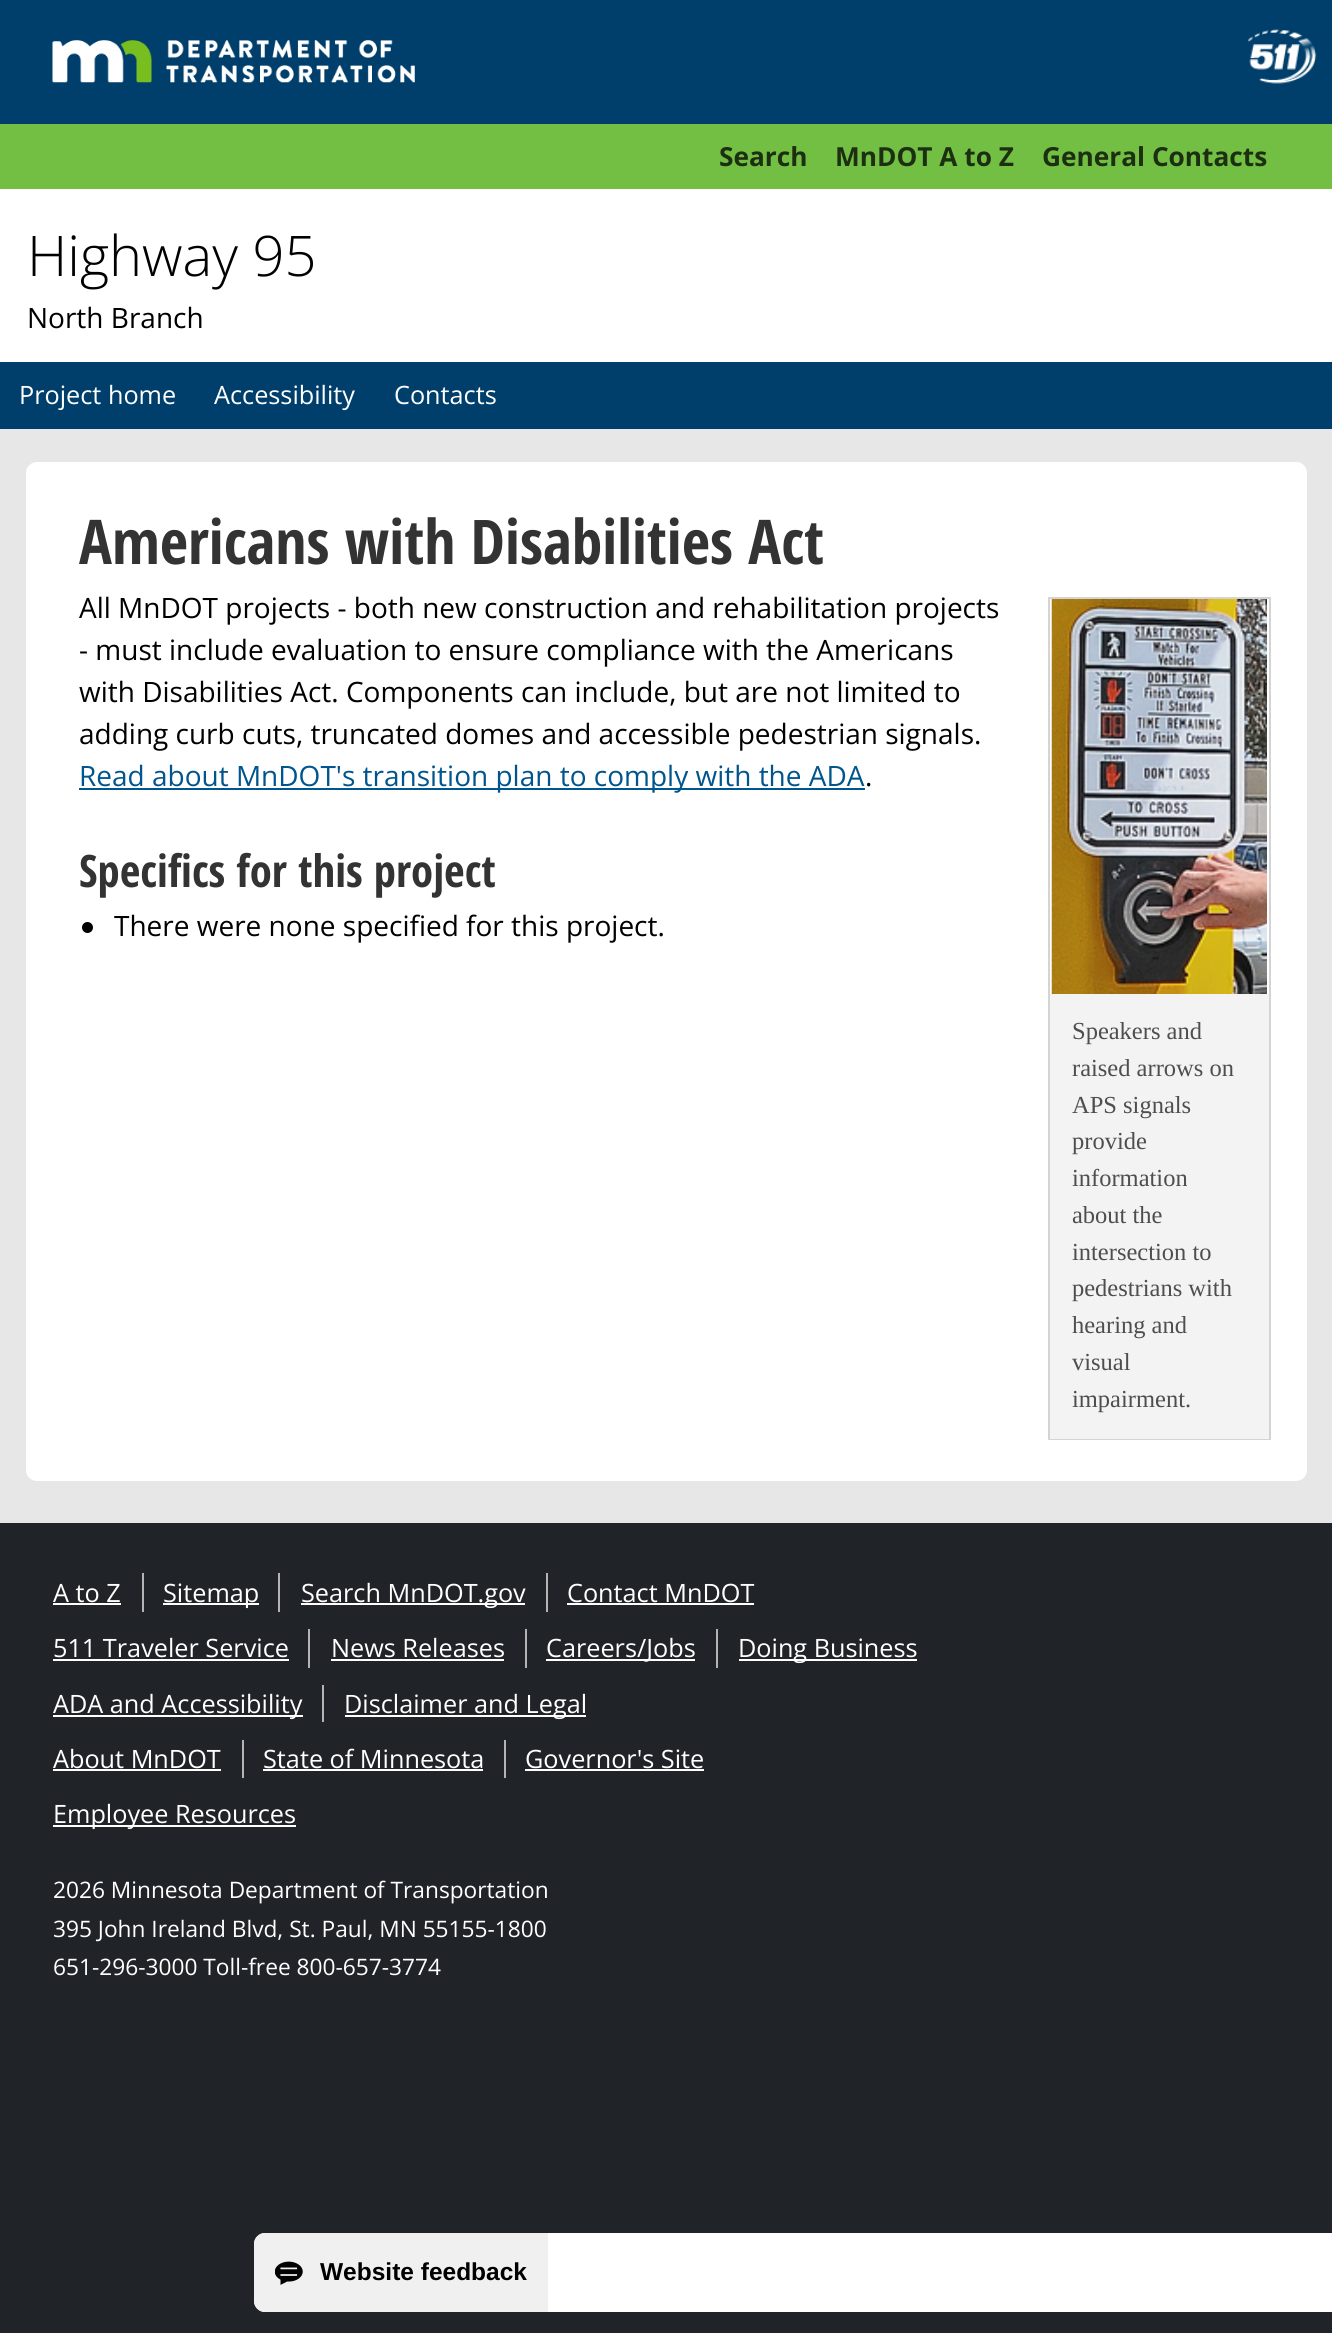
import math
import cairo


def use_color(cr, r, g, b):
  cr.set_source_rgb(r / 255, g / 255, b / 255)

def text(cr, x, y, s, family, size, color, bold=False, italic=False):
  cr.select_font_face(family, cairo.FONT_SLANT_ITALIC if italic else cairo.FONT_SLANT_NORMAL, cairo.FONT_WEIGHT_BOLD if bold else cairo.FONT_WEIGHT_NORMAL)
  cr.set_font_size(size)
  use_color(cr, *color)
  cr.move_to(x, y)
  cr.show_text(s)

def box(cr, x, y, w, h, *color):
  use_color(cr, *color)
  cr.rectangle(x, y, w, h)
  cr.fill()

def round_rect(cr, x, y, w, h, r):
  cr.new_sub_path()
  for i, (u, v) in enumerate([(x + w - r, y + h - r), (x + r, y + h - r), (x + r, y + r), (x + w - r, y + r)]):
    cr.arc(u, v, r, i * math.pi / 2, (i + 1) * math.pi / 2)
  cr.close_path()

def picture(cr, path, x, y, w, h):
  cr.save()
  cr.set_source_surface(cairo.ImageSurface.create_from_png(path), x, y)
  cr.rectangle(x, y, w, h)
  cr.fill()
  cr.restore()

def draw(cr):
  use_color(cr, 32, 35, 40)
  cr.paint()
  box(cr, 0, 0, 1332, 124, 0, 63, 107)
  picture(cr, "img_01.png", 52, 40, 363, 43)
  picture(cr, "img_02.png", 1248, 29, 69, 55)
  box(cr, 0, 124, 1332, 65, 114, 191, 68)
  box(cr, 0, 189, 1332, 173, 255, 255, 255)
  box(cr, 0, 362, 1332, 67, 0, 63, 107)
  box(cr, 0, 429, 1332, 1094, 231, 231, 231)
  use_color(cr, 255, 255, 255)
  round_rect(cr, 26, 462, 1281, 1019, 11)
  cr.fill()
  box(cr, 79, 788, 786, 2, 0, 85, 142)
  use_color(cr, 0, 0, 0)
  cr.arc(87.5, 927.5, 5.5, 0, 2 * math.pi)
  cr.fill()
  picture(cr, "img_03.png", 1051, 599, 216, 395)
  cr.rectangle(1049, 598, 221, 841)
  use_color(cr, 212, 212, 212)
  cr.stroke()
  box(cr, 1050, 994, 219, 445, 243, 243, 243)
  box(cr, 53, 1603, 68, 2, 255, 255, 255)
  box(cr, 142, 1573, 2, 39, 180, 180, 180)
  box(cr, 163, 1603, 96, 2, 255, 255, 255)
  box(cr, 278, 1573, 2, 39, 180, 180, 180)
  box(cr, 301, 1603, 224, 2, 255, 255, 255)
  box(cr, 546, 1573, 2, 39, 180, 180, 180)
  box(cr, 567, 1603, 187, 2, 255, 255, 255)
  box(cr, 53, 1659, 236, 2, 255, 255, 255)
  box(cr, 308, 1629, 2, 39, 180, 180, 180)
  box(cr, 331, 1659, 173, 2, 255, 255, 255)
  box(cr, 525, 1629, 2, 39, 180, 180, 180)
  box(cr, 546, 1659, 149, 2, 255, 255, 255)
  box(cr, 716, 1629, 2, 39, 180, 180, 180)
  box(cr, 739, 1659, 178, 2, 255, 255, 255)
  box(cr, 53, 1715, 250, 2, 255, 255, 255)
  box(cr, 322, 1685, 2, 37, 180, 180, 180)
  box(cr, 345, 1715, 241, 2, 255, 255, 255)
  box(cr, 53, 1769, 168, 2, 255, 255, 255)
  box(cr, 242, 1740, 2, 38, 180, 180, 180)
  box(cr, 263, 1769, 220, 2, 255, 255, 255)
  box(cr, 504, 1740, 2, 38, 180, 180, 180)
  box(cr, 525, 1769, 179, 2, 255, 255, 255)
  box(cr, 53, 1825, 243, 2, 255, 255, 255)
  round_rect(cr, 254, 2233, 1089, 79, 11)
  cr.fill()
  use_color(cr, 240, 240, 240)
  cr.new_path()
  cr.move_to(265, 2233)
  cr.line_to(548, 2233)
  cr.line_to(548, 2312)
  cr.line_to(265, 2312)
  cr.curve_to(259, 2312, 254, 2307, 254, 2301)
  cr.line_to(254, 2244)
  cr.curve_to(254, 2238, 259, 2233, 265, 2233)
  cr.close_path()
  cr.fill()
  picture(cr, "img_04.png", 275, 2261, 28, 24)
  text(cr, 719, 166, "Search", "Open Sans", 26.25, (28, 48, 17), bold=True)
  text(cr, 835, 166, "MnDOT A to Z", "Open Sans", 26.25, (28, 48, 17), bold=True)
  text(cr, 1042, 166, "General Contacts", "Open Sans", 26.25, (28, 48, 17), bold=True)
  text(cr, 27, 276, "Highway 95", "Open Sans Light", 56, (0, 0, 0))
  text(cr, 27, 328, "North Branch", "Open Sans", 28, (0, 0, 0))
  text(cr, 19, 404, "Project home", "Open Sans", 25.25, (255, 255, 255))
  text(cr, 214, 404, "Accessibility", "Open Sans", 25.25, (255, 255, 255))
  text(cr, 394, 404, "Contacts", "Open Sans", 25.25, (255, 255, 255))
  text(cr, 79, 564, "Americans with Disabilities Act", "Open Sans Condensed", 61.6, (52, 51, 51), bold=True)
  text(cr, 79, 618, "All MnDOT projects - both new construction and rehabilitation projects", "Open Sans", 28, (0, 0, 0))
  text(cr, 79, 660, "- must include evaluation to ensure compliance with the Americans", "Open Sans", 28, (0, 0, 0))
  text(cr, 79, 702, "with Disabilities Act. Components can include, but are not limited to", "Open Sans", 28, (0, 0, 0))
  text(cr, 79, 744, "adding curb cuts, truncated domes and accessible pedestrian signals.", "Open Sans", 28, (0, 0, 0))
  text(cr, 79, 786, "Read about MnDOT's transition plan to comply with the ADA", "Open Sans", 28, (0, 85, 142))
  text(cr, 865, 786, ".", "Open Sans", 28, (0, 0, 0))
  text(cr, 79, 887, "Specifics for this project", "Open Sans Condensed", 44.75, (52, 51, 51), bold=True)
  text(cr, 114, 936, "There were none specified for this project.", "Open Sans", 28, (0, 0, 0))
  text(cr, 1072, 1039, "Speakers and", "Liberation Serif", 24.5, (78, 78, 78))
  text(cr, 1072, 1076, "raised arrows on", "Liberation Serif", 24.5, (78, 78, 78))
  text(cr, 1072, 1113, "APS signals", "Liberation Serif", 24.5, (78, 78, 78))
  text(cr, 1072, 1149, "provide", "Liberation Serif", 24.5, (78, 78, 78))
  text(cr, 1072, 1186, "information", "Liberation Serif", 24.5, (78, 78, 78))
  text(cr, 1072, 1223, "about the", "Liberation Serif", 24.5, (78, 78, 78))
  text(cr, 1072, 1260, "intersection to", "Liberation Serif", 24.5, (78, 78, 78))
  text(cr, 1072, 1296, "pedestrians with", "Liberation Serif", 24.5, (78, 78, 78))
  text(cr, 1072, 1333, "hearing and", "Liberation Serif", 24.5, (78, 78, 78))
  text(cr, 1072, 1370, "visual", "Liberation Serif", 24.5, (78, 78, 78))
  text(cr, 1072, 1407, "impairment.", "Liberation Serif", 24.5, (78, 78, 78))
  text(cr, 53, 1602, "A to Z", "Open Sans", 25.25, (255, 255, 255))
  text(cr, 163, 1602, "Sitemap", "Open Sans", 25.25, (255, 255, 255))
  text(cr, 301, 1602, "Search MnDOT.gov", "Open Sans", 25.25, (255, 255, 255))
  text(cr, 567, 1602, "Contact MnDOT", "Open Sans", 25.25, (255, 255, 255))
  text(cr, 53, 1657, "511 Traveler Service", "Open Sans", 25.25, (255, 255, 255))
  text(cr, 331, 1657, "News Releases", "Open Sans", 25.25, (255, 255, 255))
  text(cr, 546, 1657, "Careers/Jobs", "Open Sans", 25.25, (255, 255, 255))
  text(cr, 738, 1657, "Doing Business", "Open Sans", 25.25, (255, 255, 255))
  text(cr, 53, 1713, "ADA and Accessibility", "Open Sans", 25.25, (255, 255, 255))
  text(cr, 344, 1713, "Disclaimer and Legal", "Open Sans", 25.25, (255, 255, 255))
  text(cr, 53, 1768, "About MnDOT", "Open Sans", 25.25, (255, 255, 255))
  text(cr, 263, 1768, "State of Minnesota", "Open Sans", 25.25, (255, 255, 255))
  text(cr, 525, 1768, "Governor's Site", "Open Sans", 25.25, (255, 255, 255))
  text(cr, 53, 1823, "Employee Resources", "Open Sans", 25.25, (255, 255, 255))
  text(cr, 53, 1898, "2026 Minnesota Department of Transportation", "Open Sans", 22.7, (255, 255, 255))
  text(cr, 53, 1937, "395 John Ireland Blvd, St. Paul, MN 55155-1800", "Open Sans", 22.7, (255, 255, 255))
  text(cr, 53, 1975, "651-296-3000 Toll-free 800-657-3774", "Open Sans", 22.7, (255, 255, 255))
  text(cr, 320, 2280, "Website feedback", "Liberation Sans", 24.5, (0, 0, 0), bold=True)


surface = cairo.ImageSurface(cairo.FORMAT_RGB24, 1332, 2333)
cr = cairo.Context(surface)
options = cairo.FontOptions()
options.set_hint_metrics(cairo.HINT_METRICS_OFF)
options.set_hint_style(cairo.HINT_STYLE_NONE)
cr.set_font_options(options)
cr.set_miter_limit(4)
draw(cr)
surface.write_to_png("out.png")
